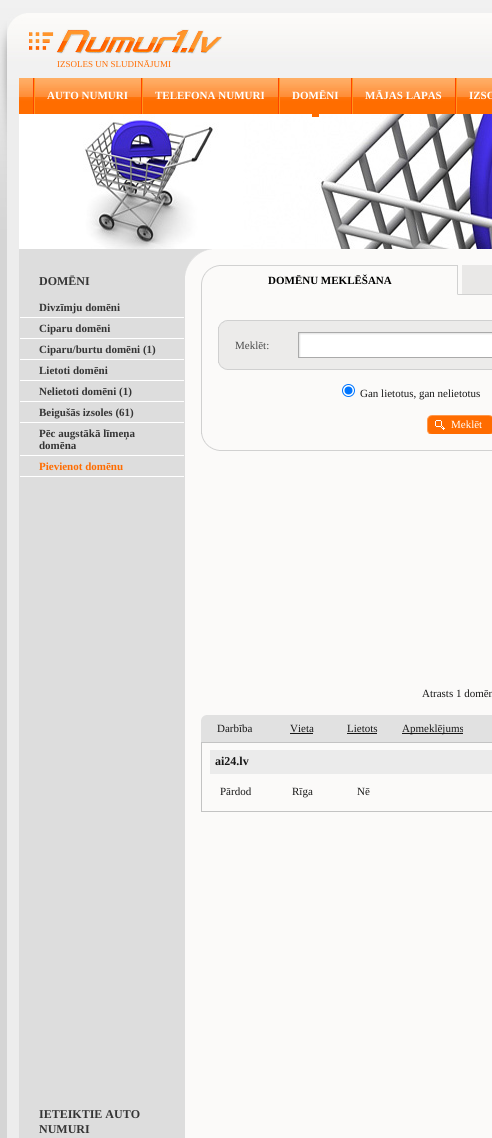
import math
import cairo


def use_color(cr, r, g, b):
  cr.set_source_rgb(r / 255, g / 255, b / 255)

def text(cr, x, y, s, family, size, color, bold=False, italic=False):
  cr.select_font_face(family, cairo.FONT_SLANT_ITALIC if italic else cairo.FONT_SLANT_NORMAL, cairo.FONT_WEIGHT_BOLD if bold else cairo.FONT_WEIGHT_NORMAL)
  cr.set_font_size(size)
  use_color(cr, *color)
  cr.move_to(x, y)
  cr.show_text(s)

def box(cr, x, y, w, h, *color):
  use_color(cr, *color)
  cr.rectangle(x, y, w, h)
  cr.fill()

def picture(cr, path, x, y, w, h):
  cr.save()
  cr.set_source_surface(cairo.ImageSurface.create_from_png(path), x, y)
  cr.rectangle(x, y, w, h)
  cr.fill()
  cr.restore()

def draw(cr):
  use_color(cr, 213, 213, 213)
  cr.paint()
  picture(cr, "img_01.png", 0, 0, 492, 13)
  picture(cr, "img_02.png", 26, 13, 466, 65)
  picture(cr, "img_03.png", 0, 13, 26, 65)
  picture(cr, "img_04.png", 29, 29, 193, 25)
  picture(cr, "img_05.png", 0, 78, 19, 171)
  picture(cr, "img_06.png", 19, 78, 473, 36)
  picture(cr, "img_07.png", 33, 78, 2, 36)
  picture(cr, "img_07.png", 141, 78, 2, 36)
  picture(cr, "img_07.png", 278, 78, 2, 36)
  picture(cr, "img_08.png", 19, 114, 473, 135)
  box(cr, 312, 114, 7, 3, 255, 108, 0)
  picture(cr, "img_07.png", 351, 78, 2, 36)
  picture(cr, "img_07.png", 455, 78, 2, 36)
  box(cr, 7, 249, 12, 889, 237, 237, 237)
  box(cr, 185, 249, 307, 889, 251, 250, 249)
  box(cr, 19, 249, 166, 889, 221, 221, 221)
  box(cr, 20, 317, 164, 1, 255, 255, 255)
  box(cr, 20, 338, 164, 1, 255, 255, 255)
  box(cr, 20, 359, 164, 1, 255, 255, 255)
  box(cr, 20, 380, 164, 1, 255, 255, 255)
  box(cr, 20, 401, 164, 1, 255, 255, 255)
  box(cr, 20, 422, 164, 1, 255, 255, 255)
  box(cr, 20, 455, 164, 1, 255, 255, 255)
  box(cr, 20, 476, 164, 1, 255, 255, 255)
  picture(cr, "img_09.png", 185, 249, 27, 27)
  picture(cr, "img_10.png", 201, 433, 291, 18)
  picture(cr, "img_11.png", 201, 265, 257, 30)
  picture(cr, "img_12.png", 458, 265, 34, 30)
  box(cr, 201, 295, 1, 139, 208, 208, 208)
  picture(cr, "img_13.png", 218, 320, 274, 42)
  picture(cr, "img_14.png", 218, 362, 274, 8)
  picture(cr, "img_15.png", 298, 332, 194, 26)
  use_color(cr, 255, 255, 255)
  cr.arc(348.5, 390.5, 6, 0, 2 * math.pi)
  cr.fill_preserve()
  use_color(cr, 0, 117, 255)
  cr.set_line_width(1)
  cr.stroke()
  cr.arc(348.5, 390.5, 4, 0, 2 * math.pi)
  cr.fill()
  box(cr, 428, 416, 64, 18, 255, 108, 0)
  picture(cr, "img_16.png", 427, 415, 65, 19)
  box(cr, 201, 715, 291, 27, 225, 225, 225)
  box(cr, 201, 742, 291, 1, 195, 195, 195)
  picture(cr, "img_17.png", 201, 715, 5, 5)
  box(cr, 290, 733, 23, 1, 23, 23, 23)
  box(cr, 347, 733, 30, 1, 23, 23, 23)
  box(cr, 402, 733, 61, 1, 23, 23, 23)
  box(cr, 201, 811, 291, 1, 195, 195, 195)
  box(cr, 201, 743, 1, 69, 195, 195, 195)
  box(cr, 210, 750, 282, 24, 235, 235, 235)
  text(cr, 57, 67, "IZSOLES UN SLUDINĀJUMI", "Liberation Serif", 9, (255, 108, 0))
  text(cr, 47, 99, "AUTO NUMURI", "Liberation Serif", 11, (255, 255, 255), bold=True)
  text(cr, 155, 99, "TELEFONA NUMURI", "Liberation Serif", 11, (255, 255, 255), bold=True)
  text(cr, 292, 99, "DOMĒNI", "Liberation Serif", 11, (255, 255, 255), bold=True)
  text(cr, 365, 99, "MĀJAS LAPAS", "Liberation Serif", 11, (255, 255, 255), bold=True)
  text(cr, 469, 99, "IZSO", "Liberation Serif", 11, (255, 255, 255), bold=True)
  text(cr, 39, 285, "DOMĒNI", "Liberation Serif", 12, (53, 53, 53), bold=True)
  text(cr, 39, 311, "Divzīmju domēni", "Liberation Serif", 11, (53, 53, 53), bold=True)
  text(cr, 39, 332, "Ciparu domēni", "Liberation Serif", 11, (53, 53, 53), bold=True)
  text(cr, 39, 353, "Ciparu/burtu domēni (1)", "Liberation Serif", 11, (53, 53, 53), bold=True)
  text(cr, 39, 374, "Lietoti domēni", "Liberation Serif", 11, (53, 53, 53), bold=True)
  text(cr, 39, 395, "Nelietoti domēni (1)", "Liberation Serif", 11, (53, 53, 53), bold=True)
  text(cr, 39, 416, "Beigušās izsoles (61)", "Liberation Serif", 11, (53, 53, 53), bold=True)
  text(cr, 39, 437, "Pēc augstākā līmeņa", "Liberation Serif", 11, (53, 53, 53), bold=True)
  text(cr, 39, 449, "domēna", "Liberation Serif", 11, (53, 53, 53), bold=True)
  text(cr, 39, 470, "Pievienot domēnu", "Liberation Serif", 11, (255, 108, 0), bold=True)
  text(cr, 39, 1118, "IETEIKTIE AUTO", "Liberation Serif", 12, (53, 53, 53), bold=True)
  text(cr, 39, 1133, "NUMURI", "Liberation Serif", 12, (53, 53, 53), bold=True)
  text(cr, 268, 284, "DOMĒNU MEKLĒŠANA", "Liberation Serif", 11, (0, 0, 0), bold=True)
  text(cr, 235, 349, "Meklēt:", "Liberation Serif", 11, (74, 74, 74))
  text(cr, 360, 397, "Gan lietotus, gan nelietotus", "Liberation Serif", 11, (23, 23, 23))
  text(cr, 451, 428, "Meklēt", "Liberation Serif", 11, (255, 255, 255))
  text(cr, 422, 697, "Atrasts 1 domēn", "Liberation Serif", 11, (23, 23, 23))
  text(cr, 217, 732, "Darbība", "Liberation Serif", 11, (23, 23, 23))
  text(cr, 290, 732, "Vieta", "Liberation Serif", 11, (23, 23, 23))
  text(cr, 347, 732, "Lietots", "Liberation Serif", 11, (23, 23, 23))
  text(cr, 402, 732, "Apmeklējums", "Liberation Serif", 11, (23, 23, 23))
  text(cr, 215, 765, "ai24.lv", "Liberation Serif", 12, (23, 23, 23), bold=True)
  text(cr, 220, 795, "Pārdod", "Liberation Serif", 11, (23, 23, 23))
  text(cr, 292, 795, "Rīga", "Liberation Serif", 11, (23, 23, 23))
  text(cr, 357, 795, "Nē", "Liberation Serif", 11, (23, 23, 23))


surface = cairo.ImageSurface(cairo.FORMAT_RGB24, 492, 1138)
cr = cairo.Context(surface)
options = cairo.FontOptions()
options.set_hint_metrics(cairo.HINT_METRICS_OFF)
options.set_hint_style(cairo.HINT_STYLE_NONE)
cr.set_font_options(options)
cr.set_miter_limit(4)
draw(cr)
surface.write_to_png("out.png")
